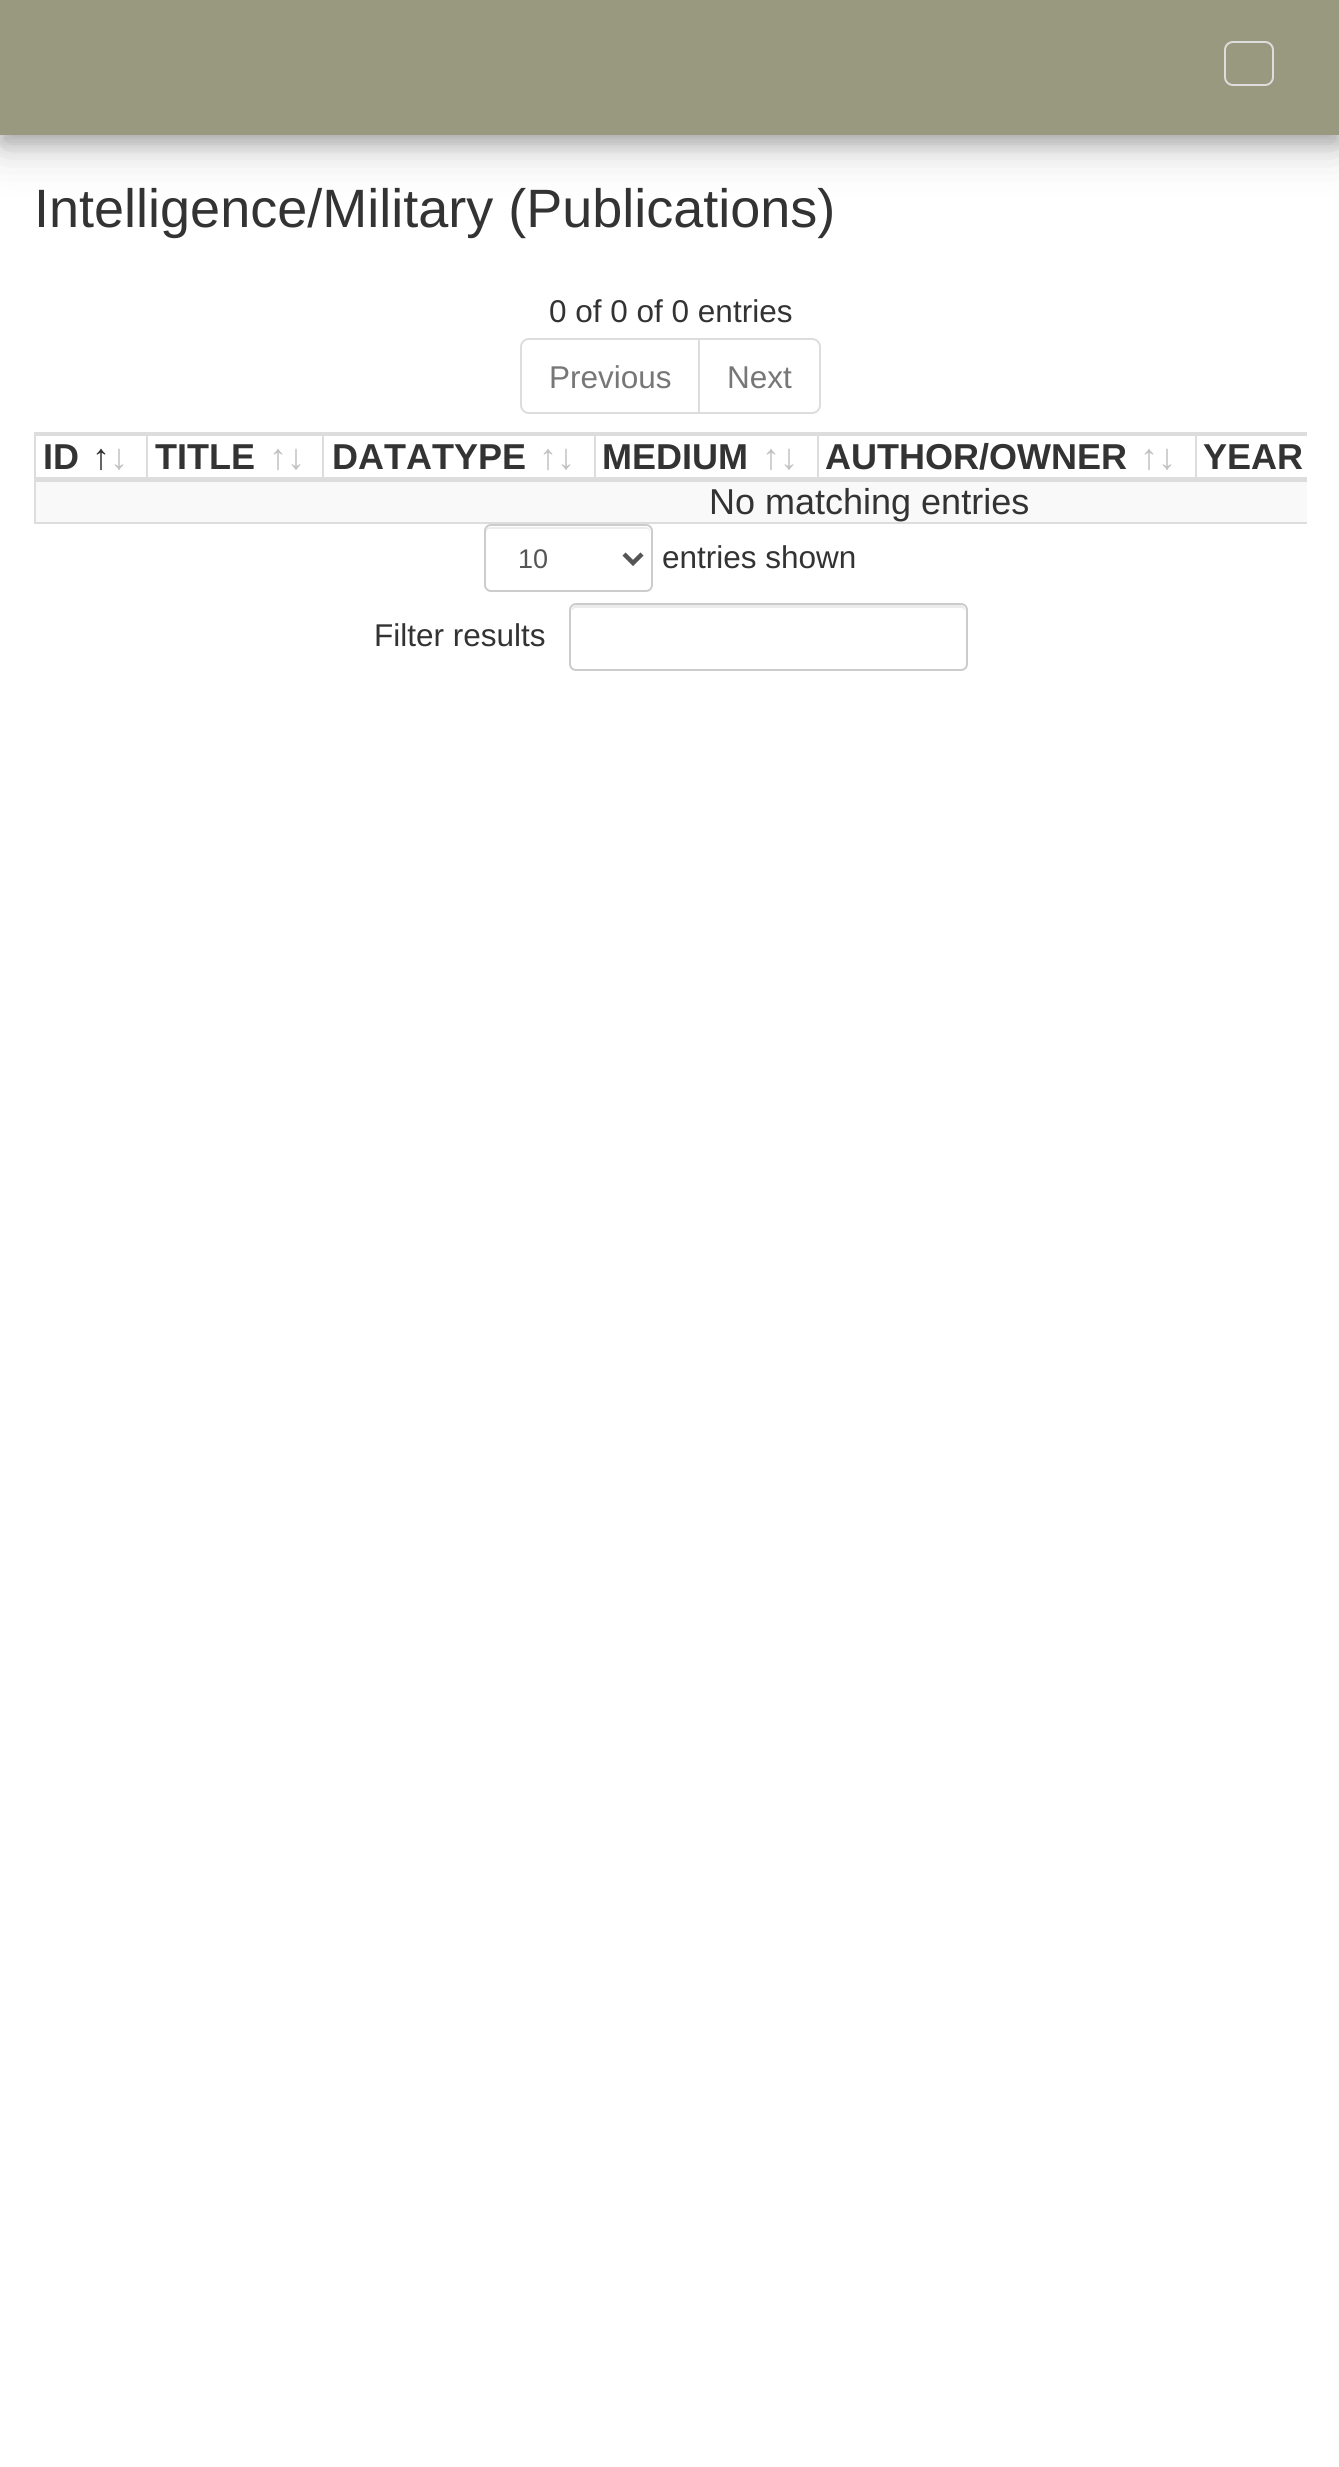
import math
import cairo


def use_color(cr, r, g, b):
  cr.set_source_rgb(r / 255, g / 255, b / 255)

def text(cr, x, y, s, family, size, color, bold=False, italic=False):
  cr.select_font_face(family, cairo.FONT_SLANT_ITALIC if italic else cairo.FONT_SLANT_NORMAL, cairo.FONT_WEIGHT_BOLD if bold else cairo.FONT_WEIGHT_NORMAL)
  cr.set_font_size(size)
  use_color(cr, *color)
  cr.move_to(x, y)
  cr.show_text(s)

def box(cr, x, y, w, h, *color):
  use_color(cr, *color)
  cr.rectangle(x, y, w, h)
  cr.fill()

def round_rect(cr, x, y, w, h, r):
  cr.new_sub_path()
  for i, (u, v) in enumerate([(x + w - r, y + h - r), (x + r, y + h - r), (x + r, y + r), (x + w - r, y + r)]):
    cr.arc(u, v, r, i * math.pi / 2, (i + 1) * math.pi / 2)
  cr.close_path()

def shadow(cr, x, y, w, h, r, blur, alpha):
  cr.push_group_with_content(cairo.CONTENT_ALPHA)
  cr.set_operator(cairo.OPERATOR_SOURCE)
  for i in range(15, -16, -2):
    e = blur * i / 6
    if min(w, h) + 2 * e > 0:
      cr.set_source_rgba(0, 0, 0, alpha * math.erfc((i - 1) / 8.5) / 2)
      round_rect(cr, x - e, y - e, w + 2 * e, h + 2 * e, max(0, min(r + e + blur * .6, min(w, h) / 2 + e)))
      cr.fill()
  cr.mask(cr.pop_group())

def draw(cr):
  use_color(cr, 255, 255, 255)
  cr.paint()
  use_color(cr, 0, 0, 0)
  shadow(cr, 0, 14, 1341, 135, 0, 22.5, 0.19)
  shadow(cr, 0, 9, 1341, 135, 0, 9, 0.2)
  box(cr, 0, 0, 1339, 135, 153, 153, 128)
  round_rect(cr, 1225, 42, 48, 43, 8)
  use_color(cr, 221, 221, 221)
  cr.stroke()
  cr.new_path()
  cr.move_to(529, 339)
  cr.line_to(699, 339)
  cr.line_to(699, 413)
  cr.line_to(529, 413)
  cr.curve_to(524.5, 413, 521, 409.5, 521, 405)
  cr.line_to(521, 347)
  cr.curve_to(521, 342.5, 524.5, 339, 529, 339)
  cr.close_path()
  cr.stroke()
  use_color(cr, 255, 255, 255)
  cr.new_path()
  cr.move_to(699, 339)
  cr.line_to(812, 339)
  cr.curve_to(816.5, 339, 820, 342.5, 820, 347)
  cr.line_to(820, 405)
  cr.curve_to(820, 409.5, 816.5, 413, 812, 413)
  cr.line_to(699, 413)
  cr.close_path()
  cr.fill_preserve()
  use_color(cr, 221, 221, 221)
  cr.stroke()
  box(cr, 34, 432, 1273, 2, 221, 221, 221)
  box(cr, 34, 432, 2, 50, 221, 221, 221)
  box(cr, 36, 434, 1271, 2, 221, 221, 221)
  box(cr, 146, 434, 2, 48, 221, 221, 221)
  box(cr, 36, 477, 113, 5, 221, 221, 221)
  box(cr, 322, 434, 2, 48, 221, 221, 221)
  box(cr, 149, 477, 175, 5, 221, 221, 221)
  box(cr, 594, 434, 2, 48, 221, 221, 221)
  box(cr, 324, 477, 272, 5, 221, 221, 221)
  box(cr, 817, 434, 2, 48, 221, 221, 221)
  box(cr, 596, 477, 223, 5, 221, 221, 221)
  box(cr, 1195, 434, 2, 48, 221, 221, 221)
  box(cr, 819, 477, 488, 5, 221, 221, 221)
  box(cr, 34, 522, 1273, 2, 221, 221, 221)
  box(cr, 34, 482, 2, 42, 221, 221, 221)
  box(cr, 36, 482, 1271, 40, 249, 249, 249)
  use_color(cr, 236, 236, 236)
  cr.new_path()
  cr.move_to(490, 529)
  cr.line_to(646, 529)
  cr.curve_to(648, 529, 650, 531, 650, 533)
  cr.line_to(650, 532)
  cr.curve_to(650, 529, 648, 527, 645, 527)
  cr.line_to(491, 527)
  cr.curve_to(488, 527, 486, 529, 486, 532)
  cr.line_to(486, 533)
  cr.curve_to(486, 531, 488, 529, 490, 529)
  cr.close_path()
  cr.fill()
  round_rect(cr, 485, 525, 167, 66, 6)
  use_color(cr, 204, 204, 204)
  cr.stroke()
  cr.new_path()
  cr.move_to(624, 554)
  cr.line_to(633, 563)
  cr.line_to(642, 554)
  use_color(cr, 85, 85, 85)
  cr.set_line_width(4.5)
  cr.stroke()
  use_color(cr, 236, 236, 236)
  cr.new_path()
  cr.move_to(576, 608)
  cr.line_to(961, 608)
  cr.curve_to(963, 608, 965, 610, 965, 612)
  cr.line_to(965, 610)
  cr.curve_to(965, 607, 963, 605, 960, 605)
  cr.line_to(577, 605)
  cr.curve_to(574, 605, 572, 607, 572, 610)
  cr.line_to(572, 612)
  cr.curve_to(572, 610, 574, 608, 576, 608)
  cr.close_path()
  cr.fill()
  round_rect(cr, 570, 604, 397, 66, 6)
  use_color(cr, 204, 204, 204)
  cr.set_line_width(2)
  cr.stroke()
  text(cr, 34, 227, "Intelligence/Military (Publications)", "Liberation Sans", 54, (51, 51, 51))
  text(cr, 549, 322, "0 of 0 of 0 entries", "Liberation Sans", 31.5, (51, 51, 51))
  text(cr, 549, 388, "Previous", "Liberation Sans", 31.5, (119, 119, 119))
  text(cr, 727, 388, "Next", "Liberation Sans", 31.5, (119, 119, 119))
  text(cr, 43, 469, "ID", "Liberation Sans", 36, (51, 51, 51), bold=True)
  text(cr, 92, 469, "↑", "Liberation Sans", 36, (51, 51, 51), bold=True)
  text(cr, 110, 469, "↓", "Liberation Sans", 36, (194, 194, 194), bold=True)
  text(cr, 155, 469, "TITLE", "Liberation Sans", 36, (51, 51, 51), bold=True)
  text(cr, 269, 469, "↑↓", "Liberation Sans", 36, (194, 194, 194), bold=True)
  text(cr, 332, 469, "DATATYPE", "Liberation Sans", 36, (51, 51, 51), bold=True)
  text(cr, 539, 469, "↑↓", "Liberation Sans", 36, (194, 194, 194), bold=True)
  text(cr, 602, 469, "MEDIUM", "Liberation Sans", 36, (51, 51, 51), bold=True)
  text(cr, 762, 469, "↑↓", "Liberation Sans", 36, (194, 194, 194), bold=True)
  text(cr, 825, 469, "AUTHOR/OWNER", "Liberation Sans", 36, (51, 51, 51), bold=True)
  text(cr, 1140, 469, "↑↓", "Liberation Sans", 36, (194, 194, 194), bold=True)
  text(cr, 1203, 469, "YEAR", "Liberation Sans", 36, (51, 51, 51), bold=True)
  text(cr, 709, 514, "No matching entries", "Liberation Sans", 36, (51, 51, 51))
  text(cr, 518, 568, "10", "Liberation Sans", 27, (85, 85, 85))
  text(cr, 662, 568, "entries shown", "Liberation Sans", 31.5, (51, 51, 51))
  text(cr, 374, 646, "Filter results", "Liberation Sans", 31.5, (51, 51, 51))


surface = cairo.ImageSurface(cairo.FORMAT_RGB24, 1339, 2467)
cr = cairo.Context(surface)
options = cairo.FontOptions()
options.set_hint_metrics(cairo.HINT_METRICS_OFF)
options.set_hint_style(cairo.HINT_STYLE_NONE)
cr.set_font_options(options)
cr.set_miter_limit(4)
draw(cr)
surface.write_to_png("out.png")
